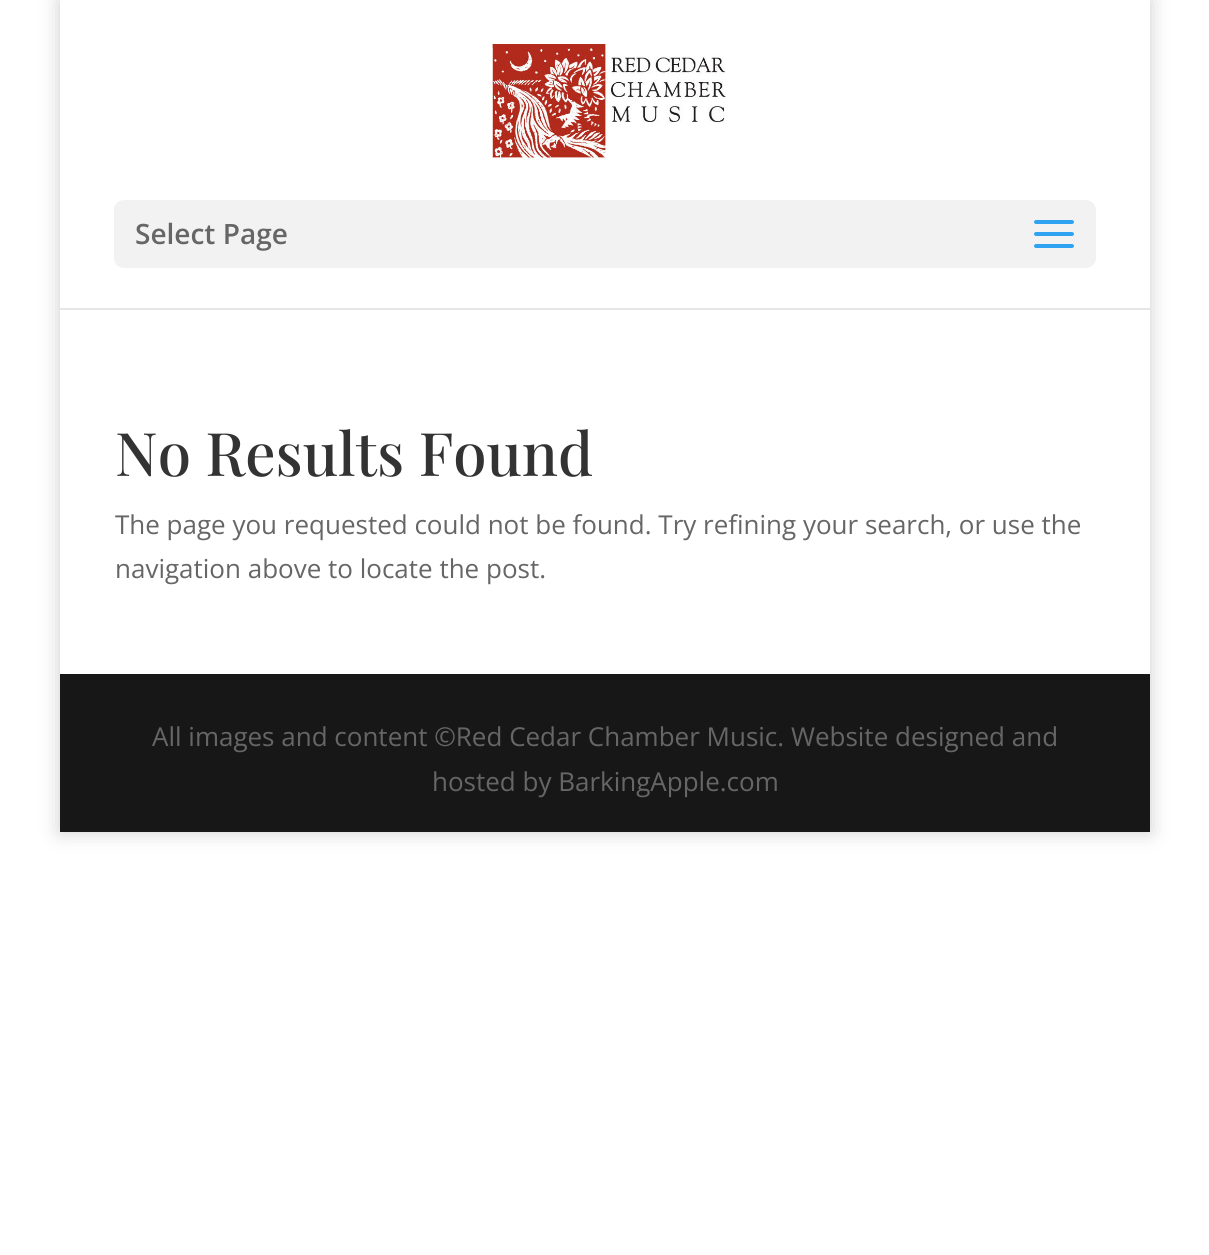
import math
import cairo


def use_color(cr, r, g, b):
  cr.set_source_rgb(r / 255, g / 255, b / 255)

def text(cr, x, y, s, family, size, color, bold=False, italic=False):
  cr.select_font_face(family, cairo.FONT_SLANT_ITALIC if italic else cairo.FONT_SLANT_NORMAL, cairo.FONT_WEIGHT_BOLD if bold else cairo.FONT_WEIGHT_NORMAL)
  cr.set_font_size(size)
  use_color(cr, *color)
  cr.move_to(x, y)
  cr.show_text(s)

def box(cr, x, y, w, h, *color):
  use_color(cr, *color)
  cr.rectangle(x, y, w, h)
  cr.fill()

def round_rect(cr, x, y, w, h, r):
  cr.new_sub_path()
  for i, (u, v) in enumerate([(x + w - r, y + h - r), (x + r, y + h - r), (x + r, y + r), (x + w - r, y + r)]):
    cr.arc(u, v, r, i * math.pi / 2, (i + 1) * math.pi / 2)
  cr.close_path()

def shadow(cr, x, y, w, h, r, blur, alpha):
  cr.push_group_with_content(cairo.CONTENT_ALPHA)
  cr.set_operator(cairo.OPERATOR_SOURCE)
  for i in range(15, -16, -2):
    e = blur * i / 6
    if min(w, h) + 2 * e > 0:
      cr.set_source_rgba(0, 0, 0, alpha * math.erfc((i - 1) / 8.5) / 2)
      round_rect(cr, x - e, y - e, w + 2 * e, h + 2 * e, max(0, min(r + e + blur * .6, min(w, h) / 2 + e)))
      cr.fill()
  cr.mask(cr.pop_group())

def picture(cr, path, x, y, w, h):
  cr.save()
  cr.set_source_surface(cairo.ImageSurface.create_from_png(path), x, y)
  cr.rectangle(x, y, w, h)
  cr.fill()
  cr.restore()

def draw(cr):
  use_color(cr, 255, 255, 255)
  cr.paint()
  cr.save()
  cr.set_fill_rule(cairo.FILL_RULE_EVEN_ODD)
  cr.new_path()
  cr.move_to(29, 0)
  cr.line_to(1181, 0)
  cr.line_to(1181, 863)
  cr.line_to(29, 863)
  cr.close_path()
  cr.move_to(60, 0)
  cr.line_to(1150, 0)
  cr.line_to(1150, 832)
  cr.line_to(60, 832)
  cr.close_path()
  cr.clip()
  use_color(cr, 0, 0, 0)
  shadow(cr, 60, 0, 1090, 832, 0, 10, 0.2)
  cr.restore()
  box(cr, 60, 308, 1090, 2, 230, 230, 230)
  picture(cr, "img_01.png", 492, 44, 234, 116)
  use_color(cr, 242, 242, 242)
  round_rect(cr, 114, 200, 982, 68, 10)
  cr.fill()
  picture(cr, "img_02.png", 1034, 220, 40, 28)
  box(cr, 60, 674, 1090, 158, 23, 23, 23)
  text(cr, 135, 244, "Select Page", "Open Sans SemiBold", 28, (102, 102, 102))
  text(cr, 115, 476, "No Results Found", "Playfair Display Medium", 60, (51, 51, 51))
  text(cr, 115, 534, "The page you requested could not be found. Try refining your search, or use the", "Open Sans", 26, (102, 102, 102))
  text(cr, 115, 578, "navigation above to locate the post.", "Open Sans", 26, (102, 102, 102))
  text(cr, 152, 746, "All images and content ©Red Cedar Chamber Music. Website designed and", "Open Sans", 26, (102, 102, 102))
  text(cr, 432, 791, "hosted by BarkingApple.com", "Open Sans", 26, (102, 102, 102))


surface = cairo.ImageSurface(cairo.FORMAT_RGB24, 1209, 1255)
cr = cairo.Context(surface)
options = cairo.FontOptions()
options.set_hint_metrics(cairo.HINT_METRICS_OFF)
options.set_hint_style(cairo.HINT_STYLE_NONE)
cr.set_font_options(options)
cr.set_miter_limit(4)
draw(cr)
surface.write_to_png("out.png")
